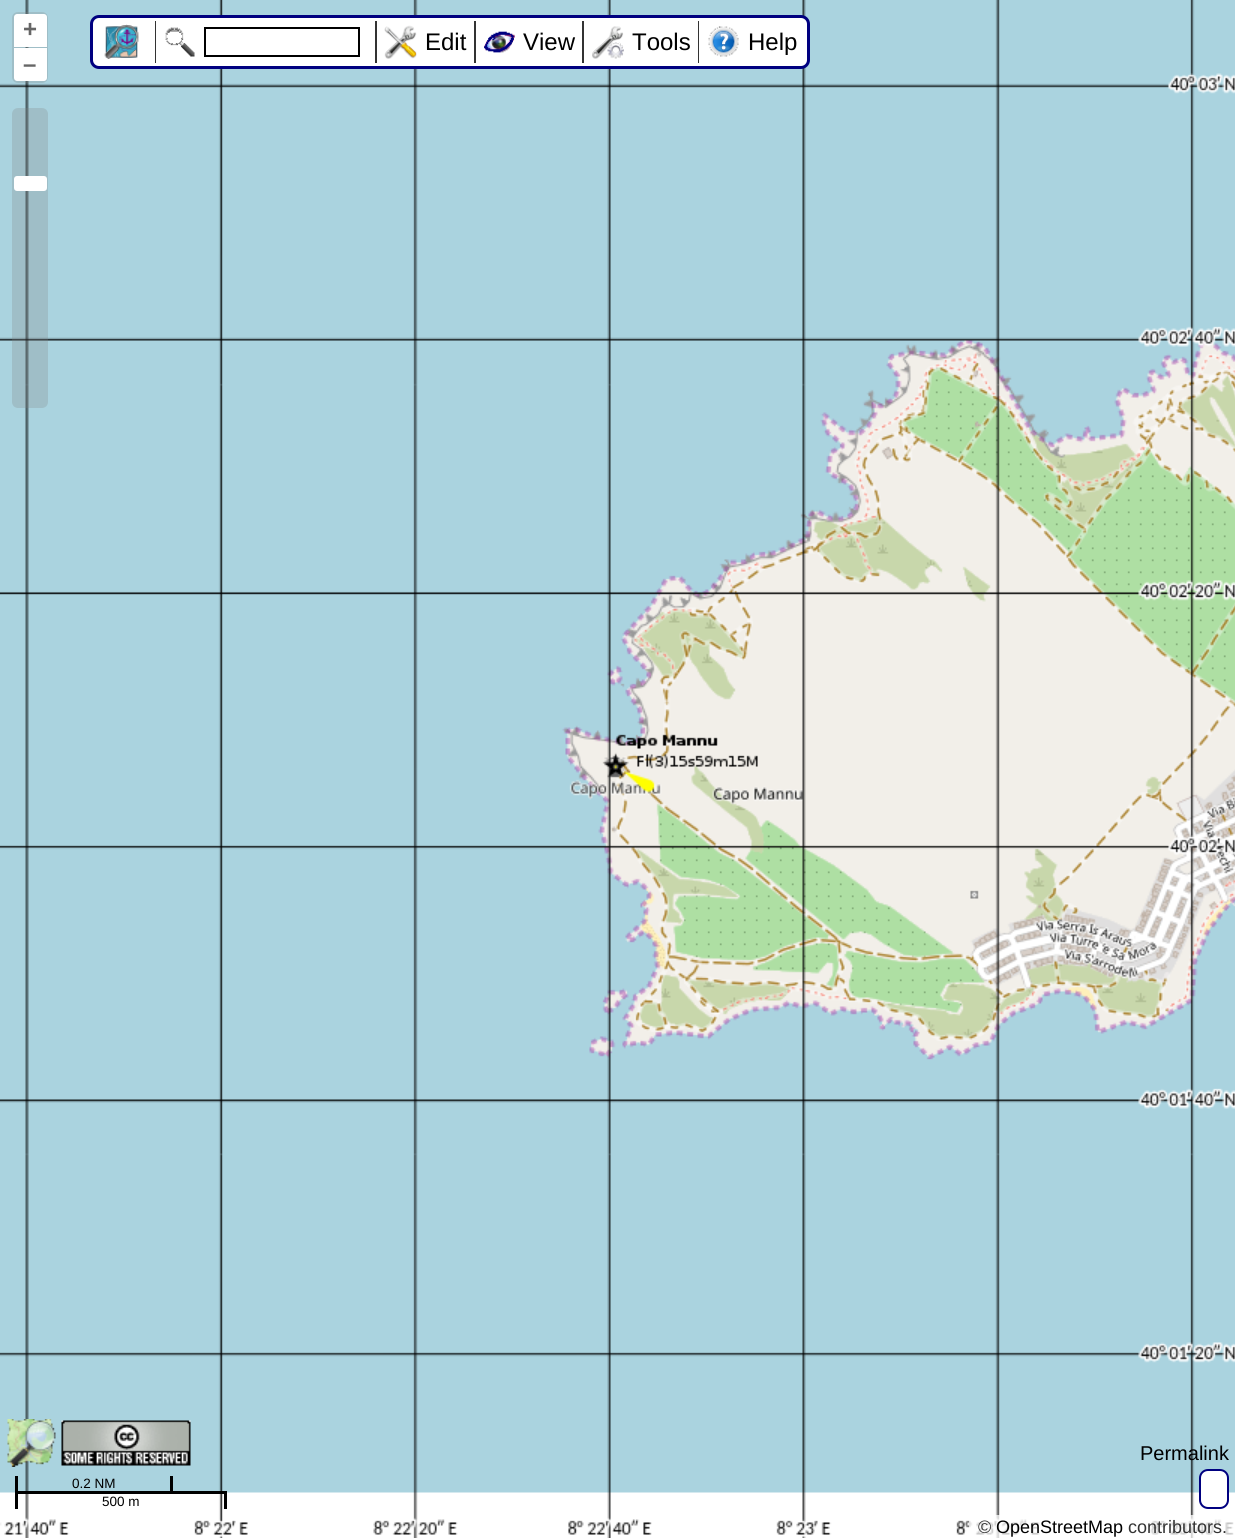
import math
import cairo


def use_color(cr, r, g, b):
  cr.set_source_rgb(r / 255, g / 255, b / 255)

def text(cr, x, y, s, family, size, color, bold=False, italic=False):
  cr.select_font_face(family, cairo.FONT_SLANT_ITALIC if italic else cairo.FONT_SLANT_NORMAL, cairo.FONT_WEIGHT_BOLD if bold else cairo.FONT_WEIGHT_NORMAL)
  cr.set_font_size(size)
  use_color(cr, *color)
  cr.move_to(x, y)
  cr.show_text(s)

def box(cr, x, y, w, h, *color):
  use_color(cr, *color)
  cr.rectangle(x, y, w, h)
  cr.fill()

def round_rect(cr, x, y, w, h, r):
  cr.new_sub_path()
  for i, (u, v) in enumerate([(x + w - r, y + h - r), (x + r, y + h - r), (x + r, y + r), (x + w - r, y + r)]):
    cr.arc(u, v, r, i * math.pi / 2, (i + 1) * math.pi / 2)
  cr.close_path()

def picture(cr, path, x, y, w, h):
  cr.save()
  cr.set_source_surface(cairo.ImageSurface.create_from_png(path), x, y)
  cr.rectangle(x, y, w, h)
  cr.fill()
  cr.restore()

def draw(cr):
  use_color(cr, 255, 255, 255)
  cr.paint()
  picture(cr, "img_01.png", 0, 0, 1235, 1538)
  cr.set_source_rgba(0.502, 0.502, 0.502, 0.25)
  round_rect(cr, 12, 12, 36, 71, 6)
  cr.fill()
  use_color(cr, 255, 255, 255)
  cr.new_path()
  cr.move_to(17, 14)
  cr.line_to(44, 14)
  cr.curve_to(45.5, 14, 47, 15.5, 47, 17)
  cr.line_to(47, 47)
  cr.line_to(14, 47)
  cr.line_to(14, 17)
  cr.curve_to(14, 15.5, 15.5, 14, 17, 14)
  cr.close_path()
  cr.fill()
  cr.new_path()
  cr.move_to(14, 48)
  cr.line_to(47, 48)
  cr.line_to(47, 78)
  cr.curve_to(47, 79.5, 45.5, 81, 44, 81)
  cr.line_to(17, 81)
  cr.curve_to(15.5, 81, 14, 79.5, 14, 78)
  cr.close_path()
  cr.fill()
  cr.set_source_rgba(0.502, 0.502, 0.502, 0.25)
  round_rect(cr, 12, 108, 36, 300, 6)
  cr.fill()
  use_color(cr, 255, 255, 255)
  round_rect(cr, 14, 176, 33, 15, 3)
  cr.fill()
  box(cr, 15, 1491, 212, 3, 0, 0, 0)
  box(cr, 170, 1476, 3, 18, 0, 0, 0)
  use_color(cr, 255, 255, 255)
  round_rect(cr, 1200, 1470, 28, 38, 8)
  cr.fill_preserve()
  use_color(cr, 0, 0, 128)
  cr.stroke()
  box(cr, 224, 1491, 3, 18, 0, 0, 0)
  box(cr, 15, 1476, 3, 33, 0, 0, 0)
  cr.set_source_rgba(1, 1, 1, 0.75)
  cr.new_path()
  cr.move_to(975, 1515)
  cr.line_to(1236, 1515)
  cr.line_to(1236, 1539)
  cr.line_to(969, 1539)
  cr.line_to(969, 1521)
  cr.curve_to(969, 1517.5, 971.5, 1515, 975, 1515)
  cr.close_path()
  cr.fill()
  use_color(cr, 255, 255, 255)
  round_rect(cr, 91.5, 16.5, 717, 51, 7.5)
  cr.fill_preserve()
  use_color(cr, 0, 0, 128)
  cr.set_line_width(3)
  cr.stroke()
  box(cr, 155, 21, 1, 42, 51, 51, 51)
  picture(cr, "img_02.png", 104, 24, 35, 35)
  box(cr, 375, 21, 2, 42, 51, 51, 51)
  picture(cr, "img_03.png", 165, 27, 30, 30)
  cr.rectangle(205, 28, 154, 28)
  use_color(cr, 0, 0, 0)
  cr.set_line_width(2)
  cr.stroke()
  box(cr, 474, 21, 2, 42, 51, 51, 51)
  picture(cr, "img_04.png", 384, 25, 33, 34)
  box(cr, 582, 21, 2, 42, 51, 51, 51)
  picture(cr, "img_05.png", 484, 31, 31, 22)
  box(cr, 698, 21, 1, 42, 51, 51, 51)
  picture(cr, "img_06.png", 592, 26, 32, 33)
  picture(cr, "img_07.png", 708, 26, 31, 31)
  picture(cr, "img_08.png", 7, 1419, 49, 48)
  picture(cr, "img_09.png", 61, 1420, 130, 46)
  text(cr, 23, 37, "+", "Liberation Sans", 24, (102, 102, 102), bold=True)
  text(cr, 23, 72, "–", "Liberation Sans", 24, (102, 102, 102), bold=True)
  text(cr, 1140, 1460, "Permalink", "Liberation Sans", 20, (0, 0, 0))
  text(cr, 72, 1488, "0.2 NM", "Liberation Sans", 13.5, (0, 0, 0))
  text(cr, 102, 1506, "500 m", "Liberation Sans", 13.5, (0, 0, 0))
  text(cr, 978, 1533, "©", "Liberation Sans", 18, (51, 51, 51))
  text(cr, 996, 1533, "OpenStreetMap", "Liberation Sans", 18, (0, 0, 0))
  text(cr, 1128, 1533, "contributors.", "Liberation Sans", 18, (51, 51, 51))
  text(cr, 425, 50, "Edit", "Liberation Sans", 24, (0, 0, 0))
  text(cr, 523, 50, "View", "Liberation Sans", 24, (0, 0, 0))
  text(cr, 632, 50, "Tools", "Liberation Sans", 24, (0, 0, 0))
  text(cr, 748, 50, "Help", "Liberation Sans", 24, (0, 0, 0))


surface = cairo.ImageSurface(cairo.FORMAT_RGB24, 1235, 1538)
cr = cairo.Context(surface)
options = cairo.FontOptions()
options.set_hint_metrics(cairo.HINT_METRICS_OFF)
options.set_hint_style(cairo.HINT_STYLE_NONE)
cr.set_font_options(options)
cr.set_miter_limit(4)
draw(cr)
surface.write_to_png("out.png")
